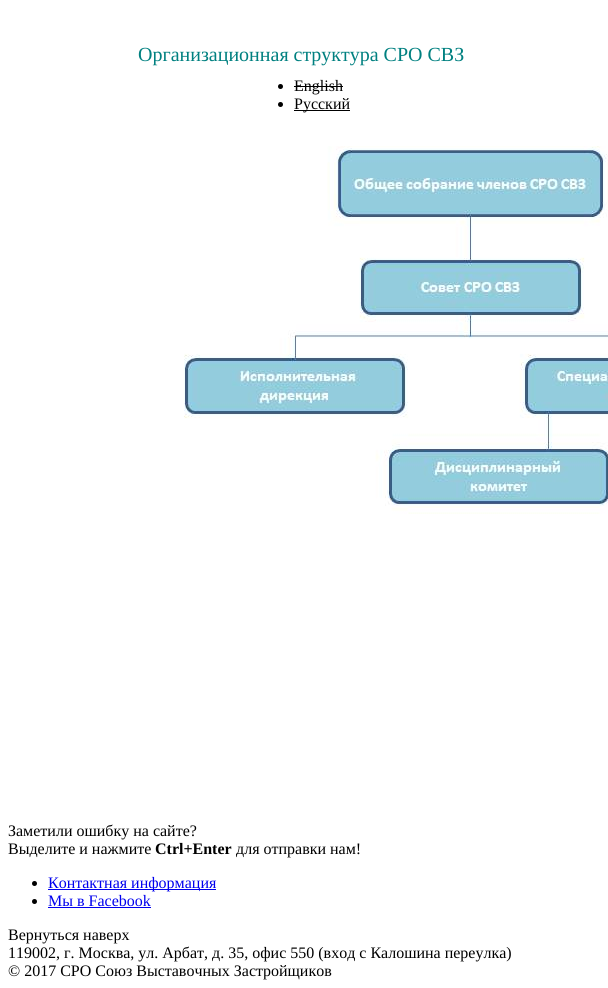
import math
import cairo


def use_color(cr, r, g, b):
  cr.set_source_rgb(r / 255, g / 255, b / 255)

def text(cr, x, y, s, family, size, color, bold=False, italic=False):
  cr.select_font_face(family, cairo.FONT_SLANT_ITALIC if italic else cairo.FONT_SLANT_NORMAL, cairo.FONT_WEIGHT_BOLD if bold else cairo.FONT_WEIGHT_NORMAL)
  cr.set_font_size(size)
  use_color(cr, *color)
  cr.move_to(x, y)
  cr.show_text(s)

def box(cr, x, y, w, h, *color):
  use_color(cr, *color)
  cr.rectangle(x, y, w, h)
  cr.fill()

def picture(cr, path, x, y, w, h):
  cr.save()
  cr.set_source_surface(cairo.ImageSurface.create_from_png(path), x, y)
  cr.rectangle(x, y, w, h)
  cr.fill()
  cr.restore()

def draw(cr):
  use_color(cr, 255, 255, 255)
  cr.paint()
  picture(cr, "img_01.png", 184, 146, 424, 368)
  use_color(cr, 0, 0, 0)
  cr.arc(280.5, 86.5, 2.5, 0, 2 * math.pi)
  cr.fill()
  box(cr, 294, 86, 49, 1, 0, 0, 0)
  cr.arc(280.5, 104.5, 2.5, 0, 2 * math.pi)
  cr.fill()
  box(cr, 294, 110, 56, 1, 0, 0, 0)
  cr.arc(34.5, 883.5, 2.5, 0, 2 * math.pi)
  cr.fill()
  box(cr, 48, 889, 168, 1, 0, 0, 238)
  use_color(cr, 0, 0, 0)
  cr.arc(34.5, 901.5, 2.5, 0, 2 * math.pi)
  cr.fill()
  box(cr, 48, 907, 103, 1, 0, 0, 238)
  text(cr, 138, 61, "Организационная структура СРО СВЗ", "Liberation Serif", 20, (0, 128, 128))
  text(cr, 294, 91, "English", "Liberation Serif", 16, (0, 0, 0))
  text(cr, 294, 109, "Русский", "Liberation Serif", 16, (0, 0, 0))
  text(cr, 8, 836, "Заметили ошибку на сайте?", "Liberation Serif", 16, (0, 0, 0))
  text(cr, 8, 854, "Выделите и нажмите", "Liberation Serif", 16, (0, 0, 0))
  text(cr, 155, 854, "Ctrl+Enter", "Liberation Serif", 16, (0, 0, 0), bold=True)
  text(cr, 236, 854, "для отправки нам!", "Liberation Serif", 16, (0, 0, 0))
  text(cr, 48, 888, "Контактная информация", "Liberation Serif", 16, (0, 0, 238))
  text(cr, 48, 906, "Мы в Facebook", "Liberation Serif", 16, (0, 0, 238))
  text(cr, 8, 940, "Вернуться наверх", "Liberation Serif", 16, (0, 0, 0))
  text(cr, 8, 958, "119002, г. Москва, ул. Арбат, д. 35, офис 550 (вход с Калошина переулка)", "Liberation Serif", 16, (0, 0, 0))
  text(cr, 8, 976, "© 2017 СРО Союз Выставочных Застройщиков", "Liberation Serif", 16, (0, 0, 0))


surface = cairo.ImageSurface(cairo.FORMAT_RGB24, 608, 988)
cr = cairo.Context(surface)
options = cairo.FontOptions()
options.set_hint_metrics(cairo.HINT_METRICS_OFF)
options.set_hint_style(cairo.HINT_STYLE_NONE)
cr.set_font_options(options)
cr.set_miter_limit(4)
draw(cr)
surface.write_to_png("out.png")
